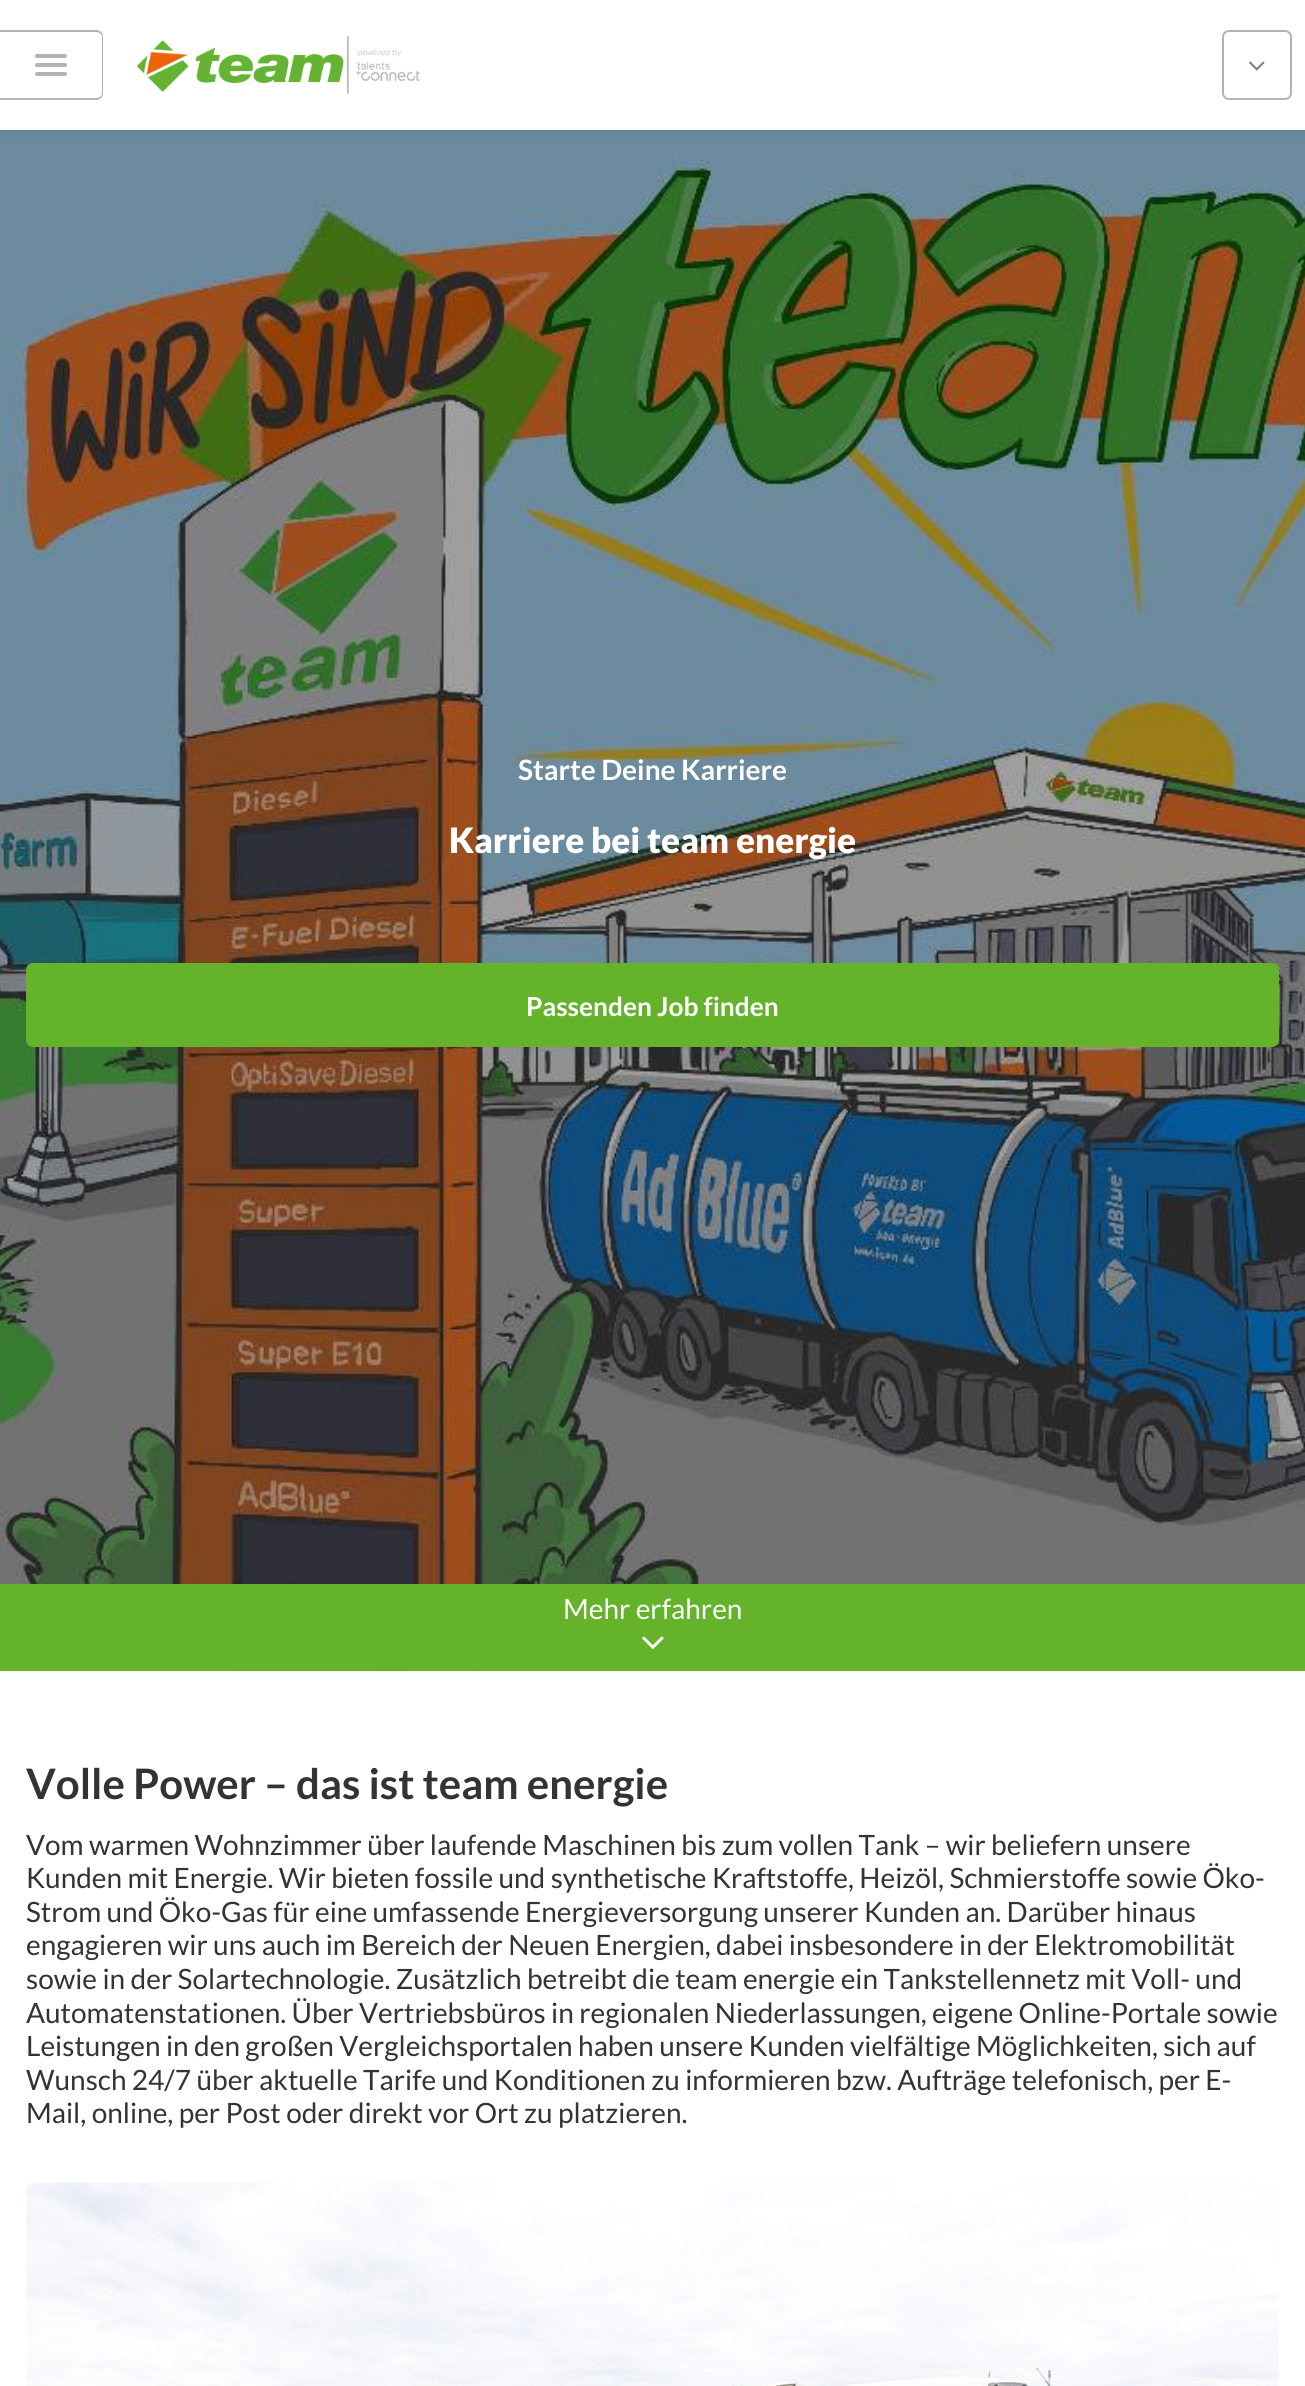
import math
import cairo


def use_color(cr, r, g, b):
  cr.set_source_rgb(r / 255, g / 255, b / 255)

def text(cr, x, y, s, family, size, color, bold=False, italic=False):
  cr.select_font_face(family, cairo.FONT_SLANT_ITALIC if italic else cairo.FONT_SLANT_NORMAL, cairo.FONT_WEIGHT_BOLD if bold else cairo.FONT_WEIGHT_NORMAL)
  cr.set_font_size(size)
  use_color(cr, *color)
  cr.move_to(x, y)
  cr.show_text(s)

def box(cr, x, y, w, h, *color):
  use_color(cr, *color)
  cr.rectangle(x, y, w, h)
  cr.fill()

def round_rect(cr, x, y, w, h, r):
  cr.new_sub_path()
  for i, (u, v) in enumerate([(x + w - r, y + h - r), (x + r, y + h - r), (x + r, y + r), (x + w - r, y + r)]):
    cr.arc(u, v, r, i * math.pi / 2, (i + 1) * math.pi / 2)
  cr.close_path()

def shadow(cr, x, y, w, h, r, blur, alpha):
  cr.push_group_with_content(cairo.CONTENT_ALPHA)
  cr.set_operator(cairo.OPERATOR_SOURCE)
  for i in range(15, -16, -2):
    e = blur * i / 6
    if min(w, h) + 2 * e > 0:
      cr.set_source_rgba(0, 0, 0, alpha * math.erfc((i - 1) / 8.5) / 2)
      round_rect(cr, x - e, y - e, w + 2 * e, h + 2 * e, max(0, min(r + e + blur * .6, min(w, h) / 2 + e)))
      cr.fill()
  cr.mask(cr.pop_group())

def picture(cr, path, x, y, w, h):
  cr.save()
  cr.set_source_surface(cairo.ImageSurface.create_from_png(path), x, y)
  cr.rectangle(x, y, w, h)
  cr.fill()
  cr.restore()

def draw(cr):
  use_color(cr, 255, 255, 255)
  cr.paint()
  picture(cr, "img_03.png", 0, 130, 1305, 1542)
  use_color(cr, 0, 0, 0)
  shadow(cr, 0, 0, 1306, 130, 0, 9, 0.1)
  box(cr, 0, 0, 1305, 130, 255, 255, 255)
  use_color(cr, 179, 179, 179)
  cr.set_fill_rule(cairo.FILL_RULE_EVEN_ODD)
  cr.new_path()
  cr.move_to(0, 30)
  cr.line_to(96, 30)
  cr.curve_to(100, 30, 103, 33, 103, 37)
  cr.line_to(103, 93)
  cr.curve_to(103, 97, 100, 100, 96, 100)
  cr.line_to(0, 100)
  cr.close_path()
  cr.move_to(0, 32)
  cr.line_to(96, 32)
  cr.curve_to(99, 32, 102, 34, 102, 37)
  cr.line_to(102, 93)
  cr.curve_to(102, 96, 99, 98, 96, 98)
  cr.line_to(0, 98)
  cr.close_path()
  cr.fill()
  round_rect(cr, 35, 54, 32, 4, 2)
  cr.fill()
  round_rect(cr, 35, 63, 32, 4, 2)
  cr.fill()
  round_rect(cr, 35, 72, 32, 4, 2)
  cr.fill()
  picture(cr, "img_01.png", 136, 36, 284, 58)
  round_rect(cr, 1223, 31, 68, 68, 6)
  cr.stroke()
  picture(cr, "img_02.png", 1249, 61, 16, 10)
  use_color(cr, 100, 179, 43)
  round_rect(cr, 26, 963, 1253, 84, 7)
  cr.fill()
  box(cr, 0, 1584, 1305, 87, 100, 179, 43)
  picture(cr, "img_04.png", 642, 1636, 22, 13)
  picture(cr, "img_05.png", 26, 2182, 1253, 204)
  text(cr, 518, 780, "Starte Deine Karriere", "Lato", 28, (255, 255, 255), bold=True)
  text(cr, 449, 853, "Karriere bei team energie", "Lato Black", 35, (255, 255, 255))
  text(cr, 526, 1016, "Passenden Job finden", "Lato", 26.25, (255, 255, 255), bold=True)
  text(cr, 563, 1619, "Mehr erfahren", "Lato", 28, (255, 255, 255))
  text(cr, 26, 1799, "Volle Power – das ist team energie", "Lato", 42, (51, 51, 51), bold=True)
  text(cr, 26, 1855, "Vom warmen Wohnzimmer über laufende Maschinen bis zum vollen Tank – wir beliefern unsere", "Lato", 28, (51, 51, 51))
  text(cr, 26, 1888, "Kunden mit Energie. Wir bieten fossile und synthetische Kraftstoffe, Heizöl, Schmierstoffe sowie Öko-", "Lato", 28, (51, 51, 51))
  text(cr, 26, 1922, "Strom und Öko-Gas für eine umfassende Energieversorgung unserer Kunden an. Darüber hinaus", "Lato", 28, (51, 51, 51))
  text(cr, 26, 1955, "engagieren wir uns auch im Bereich der Neuen Energien, dabei insbesondere in der Elektromobilität", "Lato", 28, (51, 51, 51))
  text(cr, 26, 1989, "sowie in der Solartechnologie. Zusätzlich betreibt die team energie ein Tankstellennetz mit Voll- und", "Lato", 28, (51, 51, 51))
  text(cr, 26, 2023, "Automatenstationen. Über Vertriebsbüros in regionalen Niederlassungen, eigene Online-Portale sowie", "Lato", 28, (51, 51, 51))
  text(cr, 26, 2056, "Leistungen in den großen Vergleichsportalen haben unsere Kunden vielfältige Möglichkeiten, sich auf", "Lato", 28, (51, 51, 51))
  text(cr, 26, 2090, "Wunsch 24/7 über aktuelle Tarife und Konditionen zu informieren bzw. Aufträge telefonisch, per E-", "Lato", 28, (51, 51, 51))
  text(cr, 26, 2123, "Mail, online, per Post oder direkt vor Ort zu platzieren.", "Lato", 28, (51, 51, 51))


surface = cairo.ImageSurface(cairo.FORMAT_RGB24, 1305, 2386)
cr = cairo.Context(surface)
options = cairo.FontOptions()
options.set_hint_metrics(cairo.HINT_METRICS_OFF)
options.set_hint_style(cairo.HINT_STYLE_NONE)
cr.set_font_options(options)
cr.set_miter_limit(4)
draw(cr)
surface.write_to_png("out.png")
